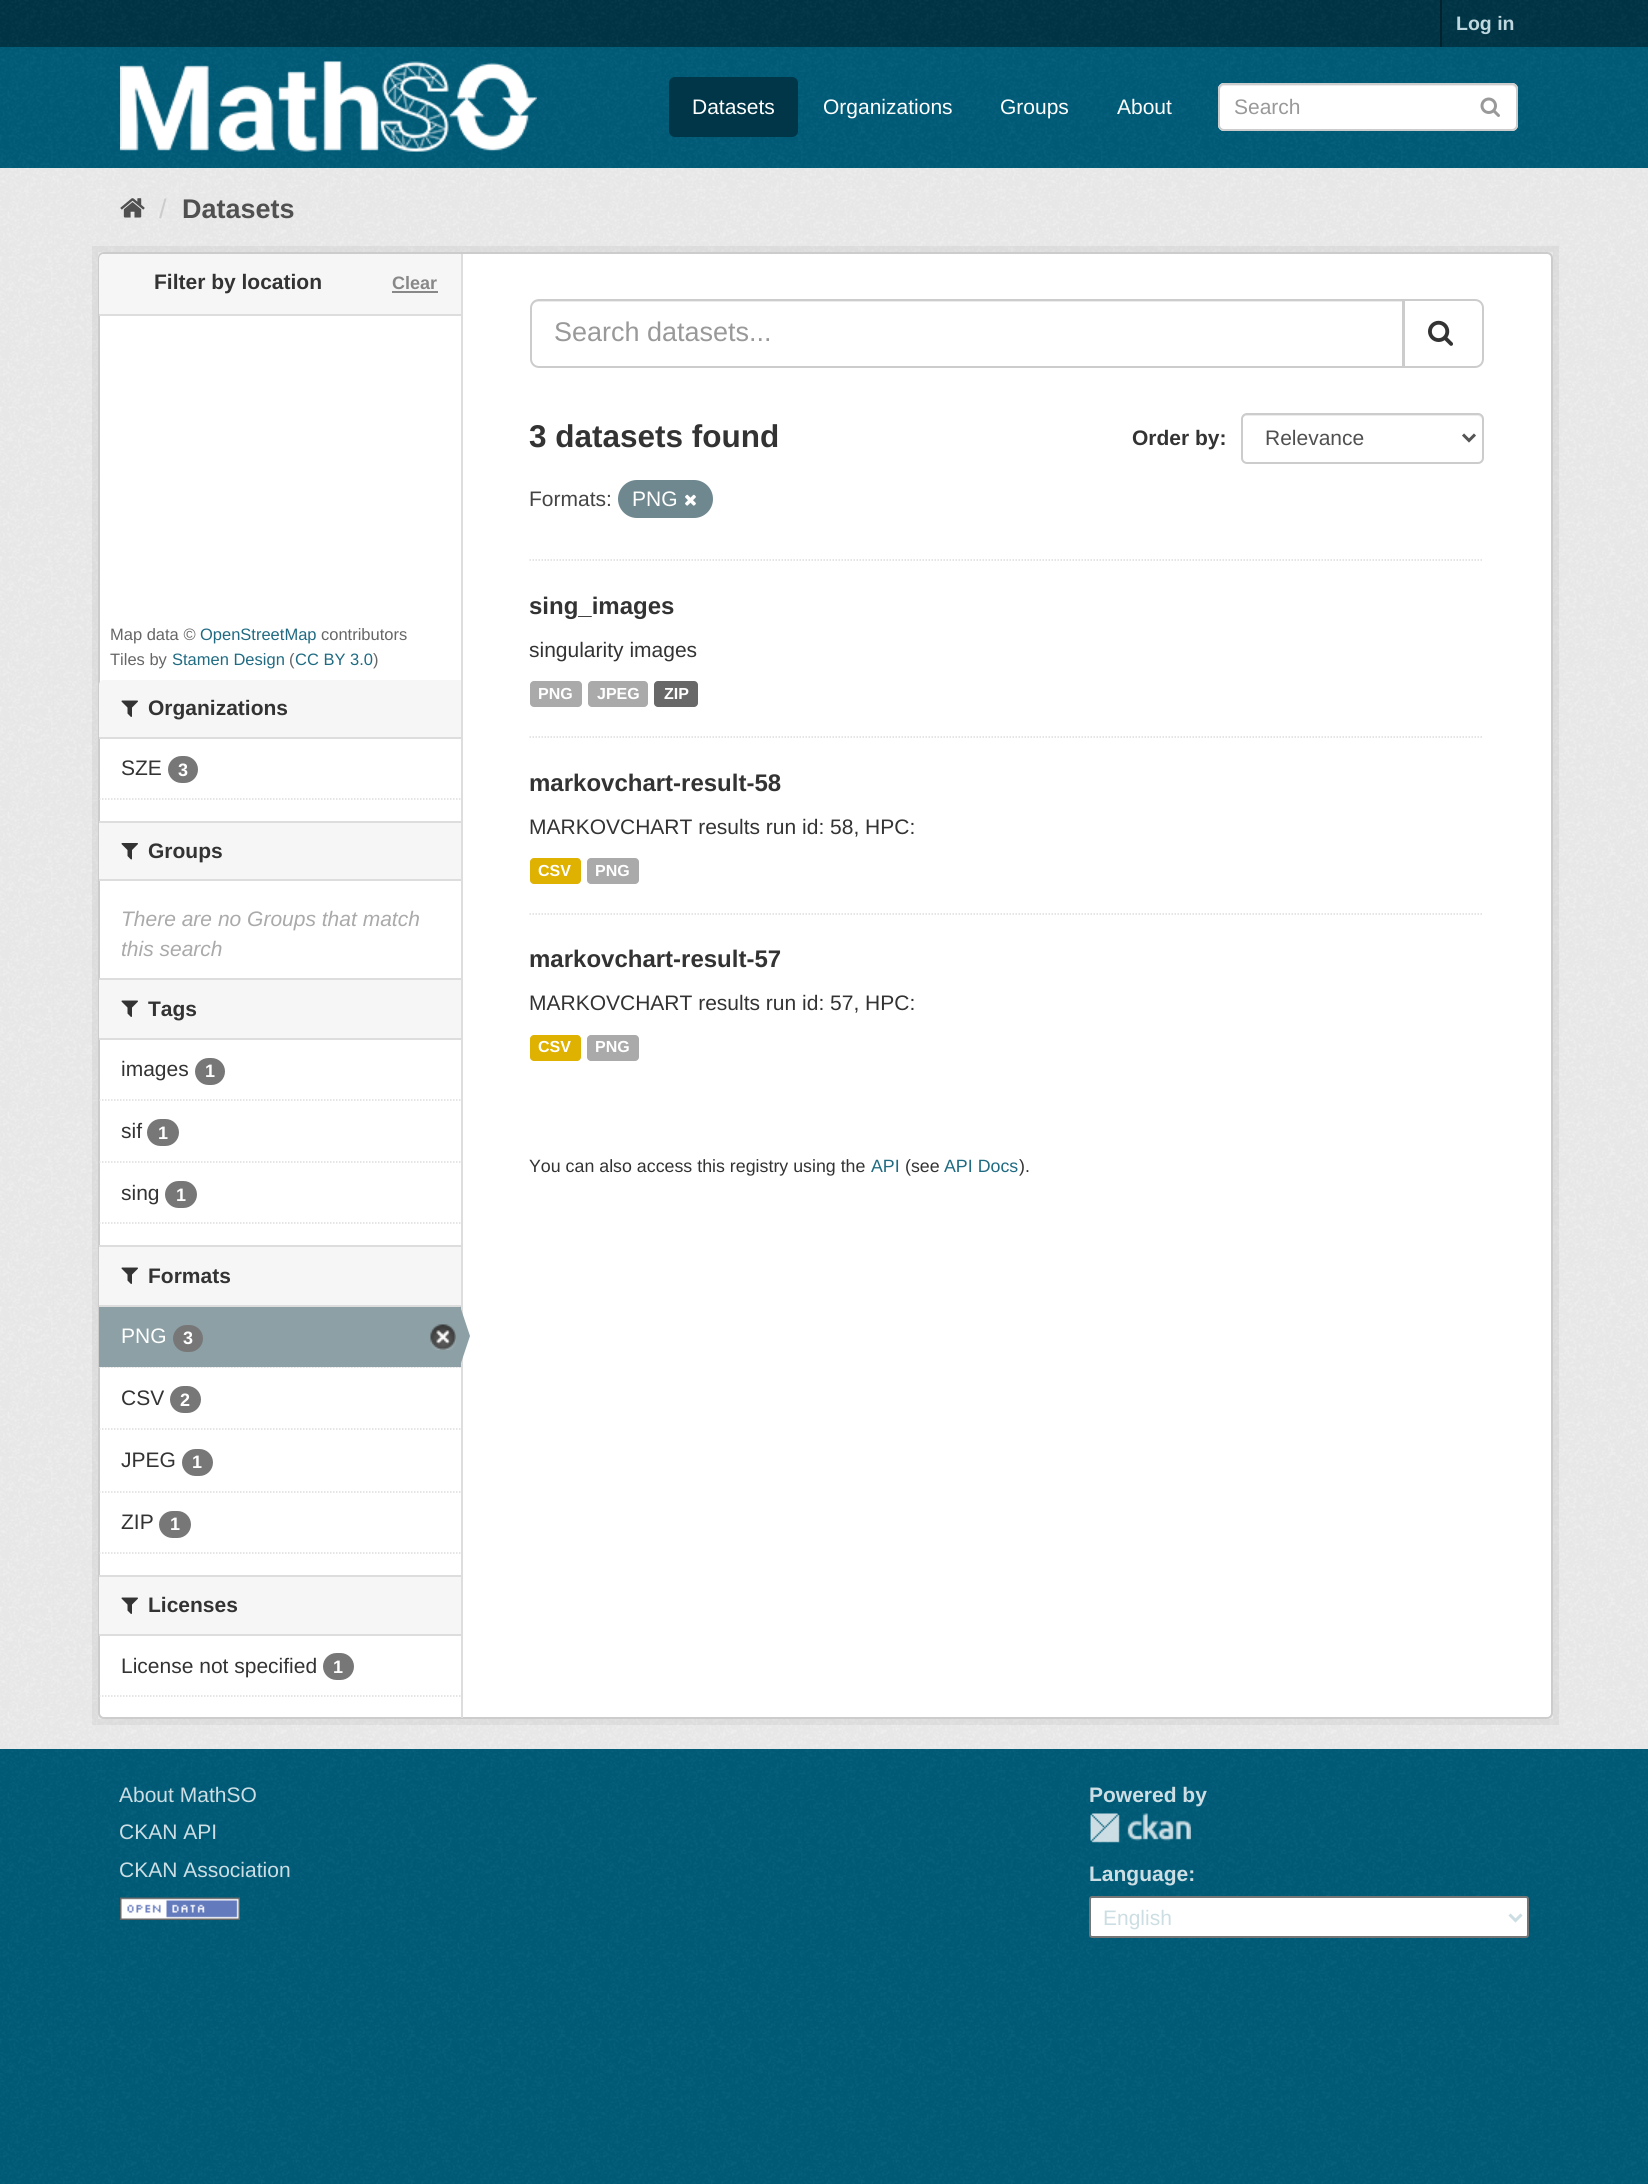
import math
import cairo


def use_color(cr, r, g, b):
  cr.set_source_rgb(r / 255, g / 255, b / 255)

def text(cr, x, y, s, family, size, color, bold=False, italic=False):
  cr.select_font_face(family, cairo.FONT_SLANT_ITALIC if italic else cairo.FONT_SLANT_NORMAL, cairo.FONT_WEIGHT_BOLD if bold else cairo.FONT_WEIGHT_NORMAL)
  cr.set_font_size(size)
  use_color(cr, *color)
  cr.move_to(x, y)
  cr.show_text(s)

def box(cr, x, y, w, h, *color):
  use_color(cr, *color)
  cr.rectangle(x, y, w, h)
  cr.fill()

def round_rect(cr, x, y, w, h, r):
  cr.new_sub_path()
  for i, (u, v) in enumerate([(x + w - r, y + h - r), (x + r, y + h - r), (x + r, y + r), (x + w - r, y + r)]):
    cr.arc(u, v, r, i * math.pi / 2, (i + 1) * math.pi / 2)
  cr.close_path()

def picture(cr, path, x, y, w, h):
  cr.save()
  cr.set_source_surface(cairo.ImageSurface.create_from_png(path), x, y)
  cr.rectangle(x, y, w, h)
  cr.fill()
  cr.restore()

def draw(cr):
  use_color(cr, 0, 93, 122)
  cr.paint()
  picture(cr, "img_01.png", 0, 1968, 1648, 216)
  box(cr, 0, 0, 1648, 47, 0, 54, 71)
  picture(cr, "img_02.png", 0, 0, 1648, 46)
  box(cr, 1440, 0, 2, 47, 0, 35, 46)
  picture(cr, "img_03.png", 0, 47, 1648, 121)
  picture(cr, "img_04.png", 120, 61, 417, 91)
  use_color(cr, 0, 54, 71)
  round_rect(cr, 669, 77, 129, 60, 6)
  cr.fill()
  use_color(cr, 255, 255, 255)
  round_rect(cr, 1218, 83, 300, 48, 6)
  cr.fill()
  use_color(cr, 236, 236, 236)
  cr.new_path()
  cr.move_to(1224, 86)
  cr.line_to(1512, 86)
  cr.curve_to(1514, 86, 1516, 88, 1516, 90)
  cr.line_to(1516, 127)
  cr.curve_to(1517, 126, 1517, 125, 1517, 124)
  cr.line_to(1517, 89)
  cr.curve_to(1517, 86, 1515, 84, 1512, 84)
  cr.line_to(1225, 84)
  cr.curve_to(1222, 84, 1220, 86, 1220, 89)
  cr.line_to(1220, 90)
  cr.curve_to(1220, 88, 1222, 86, 1224, 86)
  cr.close_path()
  cr.fill()
  round_rect(cr, 1219, 84, 298, 46, 5)
  use_color(cr, 204, 204, 204)
  cr.stroke()
  picture(cr, "img_05.png", 1480, 97, 20, 20)
  box(cr, 0, 168, 1648, 1581, 238, 238, 238)
  picture(cr, "img_06.png", 0, 168, 1648, 1581)
  picture(cr, "img_07.png", 120, 198, 25, 20)
  cr.rectangle(95, 249, 1461, 1473)
  cr.set_source_rgba(0, 0, 0, 0.05)
  cr.set_line_width(6)
  cr.stroke()
  use_color(cr, 255, 255, 255)
  round_rect(cr, 99, 253, 1453, 1465, 5)
  cr.fill_preserve()
  use_color(cr, 204, 204, 204)
  cr.set_line_width(2)
  cr.stroke()
  use_color(cr, 246, 246, 246)
  cr.new_path()
  cr.move_to(104, 254)
  cr.line_to(461, 254)
  cr.line_to(461, 315)
  cr.line_to(99, 315)
  cr.line_to(99, 259)
  cr.curve_to(99, 256, 101, 254, 104, 254)
  cr.close_path()
  cr.fill()
  box(cr, 99, 314, 362, 2, 221, 221, 221)
  box(cr, 392, 291, 46, 2, 136, 136, 136)
  use_color(cr, 246, 246, 246)
  cr.new_path()
  cr.move_to(104, 680)
  cr.line_to(461, 680)
  cr.line_to(461, 738)
  cr.line_to(99, 738)
  cr.line_to(99, 685)
  cr.curve_to(99, 682, 101, 680, 104, 680)
  cr.close_path()
  cr.fill()
  box(cr, 99, 737, 362, 2, 221, 221, 221)
  picture(cr, "img_08.png", 121, 700, 17, 17)
  use_color(cr, 119, 119, 119)
  round_rect(cr, 168, 756, 30, 27, 13.5)
  cr.fill()
  cr.new_path()
  cr.move_to(99, 799)
  cr.line_to(460.5, 799)
  use_color(cr, 221, 221, 221)
  cr.set_line_width(1.5)
  cr.set_dash([1.5, 1.5])
  cr.stroke()
  box(cr, 99, 823, 362, 56, 246, 246, 246)
  box(cr, 99, 821, 362, 2, 221, 221, 221)
  box(cr, 99, 879, 362, 2, 221, 221, 221)
  picture(cr, "img_09.png", 121, 843, 17, 17)
  box(cr, 99, 980, 362, 58, 246, 246, 246)
  box(cr, 99, 978, 362, 2, 221, 221, 221)
  box(cr, 99, 1038, 362, 2, 221, 221, 221)
  picture(cr, "img_08.png", 121, 1000, 17, 17)
  cr.new_path()
  cr.move_to(99, 1100)
  cr.line_to(460.5, 1100)
  cr.stroke()
  use_color(cr, 119, 119, 119)
  round_rect(cr, 195, 1058, 30, 27, 13.5)
  cr.fill()
  cr.new_path()
  cr.move_to(99, 1162)
  cr.line_to(460.5, 1162)
  use_color(cr, 221, 221, 221)
  cr.stroke()
  use_color(cr, 119, 119, 119)
  round_rect(cr, 147, 1119, 32, 27, 13.5)
  cr.fill()
  round_rect(cr, 165, 1181, 32, 27, 13.5)
  cr.fill()
  cr.new_path()
  cr.move_to(99, 1223)
  cr.line_to(460.5, 1223)
  use_color(cr, 221, 221, 221)
  cr.stroke()
  box(cr, 99, 1247, 362, 58, 246, 246, 246)
  box(cr, 99, 1245, 362, 2, 221, 221, 221)
  box(cr, 99, 1305, 362, 2, 221, 221, 221)
  picture(cr, "img_08.png", 121, 1267, 17, 17)
  box(cr, 99, 1367, 362, 1, 246, 246, 246)
  cr.new_path()
  cr.move_to(99, 1367)
  cr.line_to(460.5, 1367)
  use_color(cr, 221, 221, 221)
  cr.stroke()
  box(cr, 99, 1307, 362, 60, 140, 160, 166)
  use_color(cr, 119, 119, 119)
  round_rect(cr, 173, 1325, 30, 27, 13.5)
  cr.fill()
  picture(cr, "img_10.png", 430, 1324, 26, 26)
  box(cr, 461, 254, 2, 1464, 221, 221, 221)
  use_color(cr, 140, 160, 166)
  cr.new_path()
  cr.move_to(460, 1366)
  cr.line_to(460, 1306)
  cr.line_to(470, 1336)
  cr.close_path()
  cr.fill()
  cr.new_path()
  cr.move_to(99, 1429)
  cr.line_to(460.5, 1429)
  use_color(cr, 221, 221, 221)
  cr.stroke()
  use_color(cr, 119, 119, 119)
  round_rect(cr, 170, 1386, 31, 27, 13.5)
  cr.fill()
  cr.new_path()
  cr.move_to(99, 1492)
  cr.line_to(460.5, 1492)
  use_color(cr, 221, 221, 221)
  cr.stroke()
  use_color(cr, 119, 119, 119)
  round_rect(cr, 182, 1449, 31, 27, 13.5)
  cr.fill()
  round_rect(cr, 159, 1511, 32, 27, 13.5)
  cr.fill()
  cr.new_path()
  cr.move_to(99, 1553)
  cr.line_to(460.5, 1553)
  use_color(cr, 221, 221, 221)
  cr.stroke()
  box(cr, 99, 1577, 362, 57, 246, 246, 246)
  box(cr, 99, 1575, 362, 2, 221, 221, 221)
  box(cr, 99, 1634, 362, 2, 221, 221, 221)
  picture(cr, "img_08.png", 121, 1597, 17, 17)
  use_color(cr, 119, 119, 119)
  round_rect(cr, 323, 1653, 31, 27, 13.5)
  cr.fill()
  cr.new_path()
  cr.move_to(99, 1696)
  cr.line_to(460.5, 1696)
  use_color(cr, 221, 221, 221)
  cr.stroke()
  cr.new_path()
  cr.move_to(529.5, 560)
  cr.line_to(1483.5, 560)
  cr.stroke()
  use_color(cr, 236, 236, 236)
  cr.new_path()
  cr.move_to(538, 302)
  cr.line_to(1402, 302)
  cr.line_to(1402, 366)
  cr.line_to(1403, 366)
  cr.line_to(1403, 300)
  cr.line_to(539, 300)
  cr.curve_to(534, 300, 531, 304, 531, 309)
  cr.curve_to(531, 305, 534, 302, 538, 302)
  cr.close_path()
  cr.fill()
  cr.new_path()
  cr.move_to(539, 300)
  cr.line_to(1403, 300)
  cr.line_to(1403, 367)
  cr.line_to(539, 367)
  cr.curve_to(534.5, 367, 531, 363.5, 531, 359)
  cr.line_to(531, 308)
  cr.curve_to(531, 303.5, 534.5, 300, 539, 300)
  cr.close_path()
  use_color(cr, 204, 204, 204)
  cr.set_line_width(2)
  cr.set_dash([])
  cr.stroke()
  use_color(cr, 255, 255, 255)
  cr.new_path()
  cr.move_to(1404, 300)
  cr.line_to(1475, 300)
  cr.curve_to(1479.5, 300, 1483, 303.5, 1483, 308)
  cr.line_to(1483, 359)
  cr.curve_to(1483, 363.5, 1479.5, 367, 1475, 367)
  cr.line_to(1404, 367)
  cr.close_path()
  cr.fill_preserve()
  use_color(cr, 204, 204, 204)
  cr.stroke()
  picture(cr, "img_11.png", 1428, 320, 25, 26)
  use_color(cr, 236, 236, 236)
  cr.new_path()
  cr.move_to(1246, 416)
  cr.line_to(1478, 416)
  cr.curve_to(1480, 416, 1482, 418, 1482, 420)
  cr.line_to(1482, 419)
  cr.curve_to(1482, 416, 1480, 414, 1477, 414)
  cr.line_to(1247, 414)
  cr.curve_to(1244, 414, 1242, 416, 1242, 419)
  cr.line_to(1242, 420)
  cr.curve_to(1242, 418, 1244, 416, 1246, 416)
  cr.close_path()
  cr.fill()
  round_rect(cr, 1242, 414, 241, 49, 5)
  use_color(cr, 204, 204, 204)
  cr.stroke()
  cr.new_path()
  cr.move_to(1463, 434.5)
  cr.line_to(1469, 440.5)
  cr.line_to(1475, 434.5)
  use_color(cr, 85, 85, 85)
  cr.set_line_width(3)
  cr.stroke()
  use_color(cr, 111, 136, 144)
  round_rect(cr, 618, 480, 95, 38, 19)
  cr.fill()
  picture(cr, "img_12.png", 685, 494, 11, 12)
  cr.new_path()
  cr.move_to(529.5, 737)
  cr.line_to(1483.5, 737)
  use_color(cr, 221, 221, 221)
  cr.set_line_width(1.5)
  cr.set_dash([1.5, 1.5])
  cr.stroke()
  use_color(cr, 170, 170, 170)
  round_rect(cr, 530, 681, 52, 26, 4)
  cr.fill()
  round_rect(cr, 588, 681, 60, 26, 4)
  cr.fill()
  use_color(cr, 104, 104, 104)
  round_rect(cr, 654, 681, 44, 26, 4)
  cr.fill()
  cr.new_path()
  cr.move_to(529.5, 914)
  cr.line_to(1483.5, 914)
  use_color(cr, 221, 221, 221)
  cr.stroke()
  use_color(cr, 223, 177, 0)
  round_rect(cr, 530, 858, 51, 26, 4)
  cr.fill()
  use_color(cr, 170, 170, 170)
  round_rect(cr, 587, 858, 52, 26, 4)
  cr.fill()
  use_color(cr, 223, 177, 0)
  round_rect(cr, 530, 1035, 51, 26, 4)
  cr.fill()
  use_color(cr, 170, 170, 170)
  round_rect(cr, 587, 1035, 52, 26, 4)
  cr.fill()
  picture(cr, "img_13.png", 0, 1749, 1648, 219)
  picture(cr, "img_14.png", 120, 1897, 120, 23)
  picture(cr, "img_15.png", 1090, 1813, 101, 30)
  use_color(cr, 255, 255, 255)
  round_rect(cr, 1090, 1897, 438, 40, 2)
  cr.fill_preserve()
  use_color(cr, 118, 118, 118)
  cr.set_line_width(2)
  cr.set_dash([])
  cr.stroke()
  cr.new_path()
  cr.move_to(1509.5, 1914.5)
  cr.line_to(1515.5, 1920.5)
  cr.line_to(1521.5, 1914.5)
  use_color(cr, 204, 222, 227)
  cr.set_line_width(3)
  cr.stroke()
  text(cr, 1456, 30, "Log in", "Liberation Sans", 19.5, (191, 215, 222), bold=True)
  text(cr, 692, 114, "Datasets", "Liberation Sans", 21, (255, 255, 255))
  text(cr, 823, 114, "Organizations", "Liberation Sans", 21, (255, 255, 255))
  text(cr, 1000, 114, "Groups", "Liberation Sans", 21, (255, 255, 255))
  text(cr, 1117, 114, "About", "Liberation Sans", 21, (255, 255, 255))
  text(cr, 1234, 114, "Search", "Liberation Sans", 21, (153, 153, 153))
  text(cr, 159, 218, "/", "Liberation Sans", 27, (204, 204, 204))
  text(cr, 182, 218, "Datasets", "Liberation Sans", 27, (80, 80, 80), bold=True)
  text(cr, 154, 289, "Filter by location", "Liberation Sans", 21, (51, 51, 51), bold=True)
  text(cr, 392, 289, "Clear", "Liberation Sans", 18, (136, 136, 136), bold=True)
  text(cr, 110, 640, "Map data ©", "Liberation Sans", 16.5, (102, 102, 102))
  text(cr, 200, 640, "OpenStreetMap", "Liberation Sans", 16.5, (32, 107, 130))
  text(cr, 321, 640, "contributors", "Liberation Sans", 16.5, (102, 102, 102))
  text(cr, 110, 665, "Tiles by", "Liberation Sans", 16.5, (102, 102, 102))
  text(cr, 172, 665, "Stamen Design", "Liberation Sans", 16.5, (32, 107, 130))
  text(cr, 289, 665, "(", "Liberation Sans", 16.5, (102, 102, 102))
  text(cr, 295, 665, "CC BY 3.0", "Liberation Sans", 16.5, (32, 107, 130))
  text(cr, 373, 665, ")", "Liberation Sans", 16.5, (102, 102, 102))
  text(cr, 148, 715, "Organizations", "Liberation Sans", 21, (51, 51, 51), bold=True)
  text(cr, 121, 775, "SZE", "Liberation Sans", 21, (51, 51, 51))
  text(cr, 178, 776, "3", "Liberation Sans", 18, (255, 255, 255), bold=True)
  text(cr, 148, 858, "Groups", "Liberation Sans", 21, (51, 51, 51), bold=True)
  text(cr, 121, 926, "There are no Groups that match", "Liberation Sans", 21, (170, 170, 170), italic=True)
  text(cr, 121, 956, "this search", "Liberation Sans", 21, (170, 170, 170), italic=True)
  text(cr, 148, 1016, "Tags", "Liberation Sans", 21, (51, 51, 51), bold=True)
  text(cr, 121, 1076, "images", "Liberation Sans", 21, (51, 51, 51))
  text(cr, 205, 1077, "1", "Liberation Sans", 18, (255, 255, 255), bold=True)
  text(cr, 121, 1138, "sif", "Liberation Sans", 21, (51, 51, 51))
  text(cr, 158, 1139, "1", "Liberation Sans", 18, (255, 255, 255), bold=True)
  text(cr, 121, 1200, "sing", "Liberation Sans", 21, (51, 51, 51))
  text(cr, 176, 1201, "1", "Liberation Sans", 18, (255, 255, 255), bold=True)
  text(cr, 148, 1283, "Formats", "Liberation Sans", 21, (51, 51, 51), bold=True)
  text(cr, 121, 1343, "PNG", "Liberation Sans", 21, (255, 255, 255))
  text(cr, 183, 1344, "3", "Liberation Sans", 18, (255, 255, 255), bold=True)
  text(cr, 121, 1405, "CSV", "Liberation Sans", 21, (51, 51, 51))
  text(cr, 180, 1406, "2", "Liberation Sans", 18, (255, 255, 255), bold=True)
  text(cr, 121, 1467, "JPEG", "Liberation Sans", 21, (51, 51, 51))
  text(cr, 192, 1468, "1", "Liberation Sans", 18, (255, 255, 255), bold=True)
  text(cr, 121, 1529, "ZIP", "Liberation Sans", 21, (51, 51, 51))
  text(cr, 170, 1530, "1", "Liberation Sans", 18, (255, 255, 255), bold=True)
  text(cr, 148, 1612, "Licenses", "Liberation Sans", 21, (51, 51, 51), bold=True)
  text(cr, 121, 1673, "License not specified", "Liberation Sans", 21, (51, 51, 51))
  text(cr, 333, 1673, "1", "Liberation Sans", 18, (255, 255, 255), bold=True)
  text(cr, 554, 341, "Search datasets...", "Liberation Sans", 27, (153, 153, 153))
  text(cr, 529, 447, "3 datasets found", "Liberation Sans", 31.5, (51, 51, 51), bold=True)
  text(cr, 1132, 445, "Order by:", "Liberation Sans", 21, (51, 51, 51), bold=True)
  text(cr, 1265, 445, "Relevance", "Liberation Sans", 21, (80, 80, 80))
  text(cr, 529, 506, "Formats:", "Liberation Sans", 21, (68, 68, 68))
  text(cr, 632, 506, "PNG", "Liberation Sans", 21, (255, 255, 255))
  text(cr, 529, 614, "sing_images", "Liberation Sans", 24, (51, 51, 51), bold=True)
  text(cr, 529, 657, "singularity images", "Liberation Sans", 21, (51, 51, 51))
  text(cr, 538, 699, "PNG", "Liberation Sans", 16, (255, 255, 255), bold=True)
  text(cr, 597, 699, "JPEG", "Liberation Sans", 16, (255, 255, 255), bold=True)
  text(cr, 664, 699, "ZIP", "Liberation Sans", 16, (255, 255, 255), bold=True)
  text(cr, 529, 791, "markovchart-result-58", "Liberation Sans", 24, (51, 51, 51), bold=True)
  text(cr, 529, 834, "MARKOVCHART results run id: 58, HPC:", "Liberation Sans", 21, (51, 51, 51))
  text(cr, 538, 876, "CSV", "Liberation Sans", 16, (255, 255, 255), bold=True)
  text(cr, 595, 876, "PNG", "Liberation Sans", 16, (255, 255, 255), bold=True)
  text(cr, 529, 967, "markovchart-result-57", "Liberation Sans", 24, (51, 51, 51), bold=True)
  text(cr, 529, 1010, "MARKOVCHART results run id: 57, HPC:", "Liberation Sans", 21, (51, 51, 51))
  text(cr, 538, 1052, "CSV", "Liberation Sans", 16, (255, 255, 255), bold=True)
  text(cr, 595, 1052, "PNG", "Liberation Sans", 16, (255, 255, 255), bold=True)
  text(cr, 529, 1172, "You can also access this registry using the", "Liberation Sans", 17.8, (51, 51, 51))
  text(cr, 871, 1172, "API", "Liberation Sans", 17.8, (32, 107, 130))
  text(cr, 905, 1172, "(see", "Liberation Sans", 17.8, (51, 51, 51))
  text(cr, 944, 1172, "API Docs", "Liberation Sans", 17.8, (32, 107, 130))
  text(cr, 1019, 1172, ").", "Liberation Sans", 17.8, (51, 51, 51))
  text(cr, 119, 1802, "About MathSO", "Liberation Sans", 21, (204, 222, 227))
  text(cr, 119, 1839, "CKAN API", "Liberation Sans", 21, (204, 222, 227))
  text(cr, 119, 1877, "CKAN Association", "Liberation Sans", 21, (204, 222, 227))
  text(cr, 1089, 1802, "Powered by", "Liberation Sans", 21, (204, 222, 227), bold=True)
  text(cr, 1089, 1881, "Language:", "Liberation Sans", 21, (204, 222, 227), bold=True)
  text(cr, 1103, 1925, "English", "Liberation Sans", 21, (204, 222, 227))


surface = cairo.ImageSurface(cairo.FORMAT_RGB24, 1648, 2184)
cr = cairo.Context(surface)
options = cairo.FontOptions()
options.set_hint_metrics(cairo.HINT_METRICS_OFF)
options.set_hint_style(cairo.HINT_STYLE_NONE)
cr.set_font_options(options)
cr.set_miter_limit(4)
draw(cr)
surface.write_to_png("out.png")
